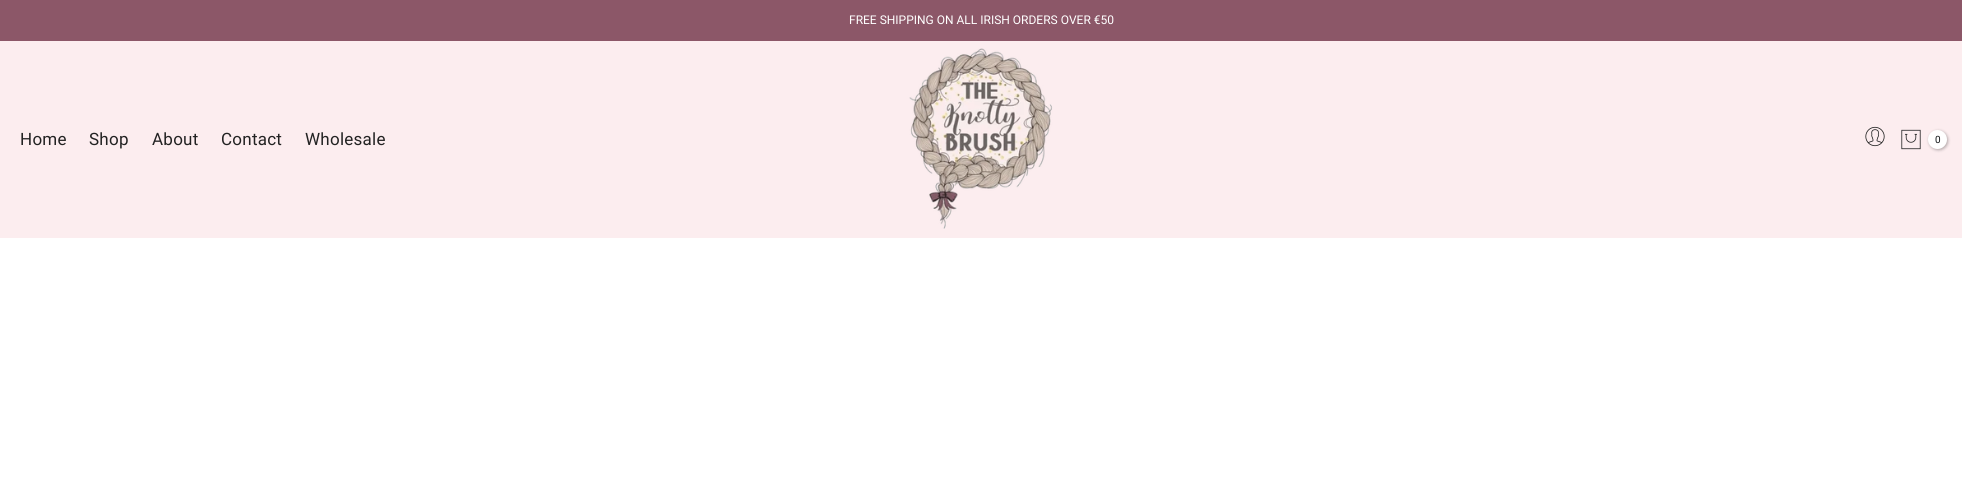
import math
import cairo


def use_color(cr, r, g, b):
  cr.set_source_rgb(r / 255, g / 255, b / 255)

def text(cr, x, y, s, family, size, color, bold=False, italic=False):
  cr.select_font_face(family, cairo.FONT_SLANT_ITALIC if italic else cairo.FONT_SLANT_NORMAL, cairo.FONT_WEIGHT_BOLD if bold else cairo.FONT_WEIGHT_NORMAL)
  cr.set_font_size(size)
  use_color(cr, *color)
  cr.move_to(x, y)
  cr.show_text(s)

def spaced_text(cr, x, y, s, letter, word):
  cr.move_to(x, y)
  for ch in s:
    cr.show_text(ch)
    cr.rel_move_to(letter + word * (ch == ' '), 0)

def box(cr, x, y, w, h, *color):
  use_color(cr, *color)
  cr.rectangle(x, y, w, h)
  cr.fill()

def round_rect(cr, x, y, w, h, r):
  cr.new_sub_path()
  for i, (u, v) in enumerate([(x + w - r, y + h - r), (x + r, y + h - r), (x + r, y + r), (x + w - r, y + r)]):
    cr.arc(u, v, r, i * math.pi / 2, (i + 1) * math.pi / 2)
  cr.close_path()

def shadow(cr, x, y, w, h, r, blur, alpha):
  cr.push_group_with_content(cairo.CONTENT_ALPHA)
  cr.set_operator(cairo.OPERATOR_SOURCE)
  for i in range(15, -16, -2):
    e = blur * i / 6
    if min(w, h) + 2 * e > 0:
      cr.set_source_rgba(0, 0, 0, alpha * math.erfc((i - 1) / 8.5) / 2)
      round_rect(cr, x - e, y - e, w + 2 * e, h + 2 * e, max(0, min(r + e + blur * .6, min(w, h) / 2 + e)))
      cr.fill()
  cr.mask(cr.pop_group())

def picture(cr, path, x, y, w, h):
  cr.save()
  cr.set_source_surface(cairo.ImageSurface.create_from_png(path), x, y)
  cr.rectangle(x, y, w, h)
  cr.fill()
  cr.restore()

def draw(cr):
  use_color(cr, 255, 255, 255)
  cr.paint()
  box(cr, 0, 0, 1962, 41, 140, 87, 104)
  box(cr, 0, 41, 1962, 197, 252, 237, 239)
  picture(cr, "img_01.png", 909, 48, 144, 181)
  picture(cr, "img_02.png", 1865, 126, 20, 21)
  picture(cr, "img_03.png", 1901, 129, 20, 21)
  use_color(cr, 0, 0, 0)
  shadow(cr, 1929, 131, 19, 19, 9.5, 1.5, 0.3)
  use_color(cr, 255, 255, 255)
  cr.arc(1937.5, 139.5, 9.5, 0, 2 * math.pi)
  cr.fill()
  text(cr, 849, 24, "FREE SHIPPING ON ALL IRISH ORDERS OVER €50", "Roboto", 12, (255, 255, 255))
  cr.set_font_size(17)
  use_color(cr, 34, 34, 34)
  spaced_text(cr, 20, 145, "Home", 0.25, 0)
  spaced_text(cr, 89, 145, "Shop", 0.25, 0)
  spaced_text(cr, 152, 145, "About", 0.25, 0)
  spaced_text(cr, 221, 145, "Contact", 0.25, 0)
  spaced_text(cr, 305, 145, "Wholesale", 0.25, 0)
  text(cr, 1935, 143, "0", "Roboto", 10, (17, 21, 23))


surface = cairo.ImageSurface(cairo.FORMAT_RGB24, 1962, 502)
cr = cairo.Context(surface)
options = cairo.FontOptions()
options.set_hint_metrics(cairo.HINT_METRICS_OFF)
options.set_hint_style(cairo.HINT_STYLE_NONE)
cr.set_font_options(options)
cr.set_miter_limit(4)
draw(cr)
surface.write_to_png("out.png")
